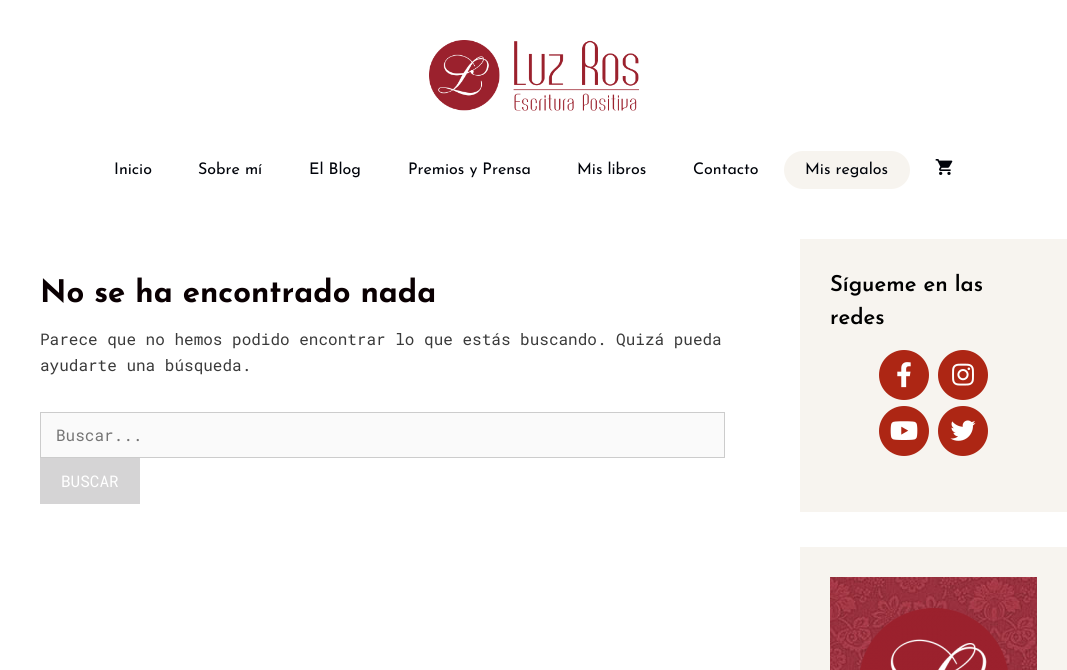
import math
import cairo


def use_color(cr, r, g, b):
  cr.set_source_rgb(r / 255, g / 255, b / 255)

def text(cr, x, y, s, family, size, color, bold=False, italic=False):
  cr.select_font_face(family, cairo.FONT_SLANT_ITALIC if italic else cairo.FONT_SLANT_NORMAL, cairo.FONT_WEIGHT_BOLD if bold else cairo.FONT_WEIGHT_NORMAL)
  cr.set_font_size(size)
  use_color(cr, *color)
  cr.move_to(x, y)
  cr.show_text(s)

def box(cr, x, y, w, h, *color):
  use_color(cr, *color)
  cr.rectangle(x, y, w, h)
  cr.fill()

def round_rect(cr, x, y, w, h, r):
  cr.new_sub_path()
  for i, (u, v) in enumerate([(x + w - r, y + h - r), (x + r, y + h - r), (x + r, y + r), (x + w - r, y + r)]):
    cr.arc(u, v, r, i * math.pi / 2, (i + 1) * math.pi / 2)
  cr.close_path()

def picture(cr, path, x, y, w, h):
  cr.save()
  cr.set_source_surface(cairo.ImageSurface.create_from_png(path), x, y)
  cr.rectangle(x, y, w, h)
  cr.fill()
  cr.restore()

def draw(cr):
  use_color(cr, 255, 255, 255)
  cr.paint()
  picture(cr, "img_01.png", 429, 40, 210, 71)
  use_color(cr, 247, 244, 239)
  round_rect(cr, 784, 151, 126, 38, 19)
  cr.fill()
  picture(cr, "img_02.png", 935, 159, 18, 16)
  use_color(cr, 250, 250, 250)
  cr.rectangle(40.5, 412.5, 684, 45)
  cr.fill_preserve()
  use_color(cr, 204, 204, 204)
  cr.set_line_width(1)
  cr.stroke()
  box(cr, 40, 458, 100, 46, 213, 212, 213)
  box(cr, 800, 239, 267, 273, 247, 244, 239)
  use_color(cr, 173, 38, 20)
  cr.arc(904, 375, 25, 0, 2 * math.pi)
  cr.fill()
  picture(cr, "img_03.png", 897, 362, 14, 26)
  cr.arc(963, 375, 25, 0, 2 * math.pi)
  cr.fill()
  picture(cr, "img_04.png", 952, 363, 22, 23)
  cr.arc(904, 431, 25, 0, 2 * math.pi)
  cr.fill()
  picture(cr, "img_05.png", 890, 421, 28, 19)
  cr.arc(963, 431, 25, 0, 2 * math.pi)
  cr.fill()
  picture(cr, "img_06.png", 950, 420, 26, 21)
  box(cr, 800, 547, 267, 123, 247, 244, 239)
  picture(cr, "img_07.png", 830, 577, 207, 93)
  picture(cr, "img_08.png", 860, 608, 148, 62)
  text(cr, 114, 174, "Inicio", "Josefin Sans", 16, (0, 3, 10))
  text(cr, 198, 174, "Sobre mí", "Josefin Sans", 16, (0, 3, 10))
  text(cr, 309, 174, "El Blog", "Josefin Sans", 16, (0, 3, 10))
  text(cr, 408, 174, "Premios y Prensa", "Josefin Sans", 16, (0, 3, 10))
  text(cr, 577, 174, "Mis libros", "Josefin Sans", 16, (0, 3, 10))
  text(cr, 693, 174, "Contacto", "Josefin Sans", 16, (0, 3, 10))
  text(cr, 805, 174, "Mis regalos", "Josefin Sans", 16, (0, 3, 10))
  text(cr, 40, 302, "No se ha encontrado nada", "Josefin Sans", 31, (10, 0, 2), bold=True)
  text(cr, 40, 345, "Parece que no hemos podido encontrar lo que estás buscando. Quizá pueda", "Roboto Mono", 16, (58, 58, 58))
  text(cr, 40, 371, "ayudarte una búsqueda.", "Roboto Mono", 16, (58, 58, 58))
  text(cr, 56, 441, "Buscar...", "Roboto Mono", 16, (117, 117, 117))
  text(cr, 61, 487, "BUSCAR", "Roboto Mono", 16, (255, 255, 255))
  text(cr, 830, 291, "Sígueme en las", "Josefin Sans SemiBold", 22, (0, 0, 0))
  text(cr, 830, 324, "redes", "Josefin Sans SemiBold", 22, (0, 0, 0))


surface = cairo.ImageSurface(cairo.FORMAT_RGB24, 1067, 670)
cr = cairo.Context(surface)
options = cairo.FontOptions()
options.set_hint_metrics(cairo.HINT_METRICS_OFF)
options.set_hint_style(cairo.HINT_STYLE_NONE)
cr.set_font_options(options)
cr.set_miter_limit(4)
draw(cr)
surface.write_to_png("out.png")
